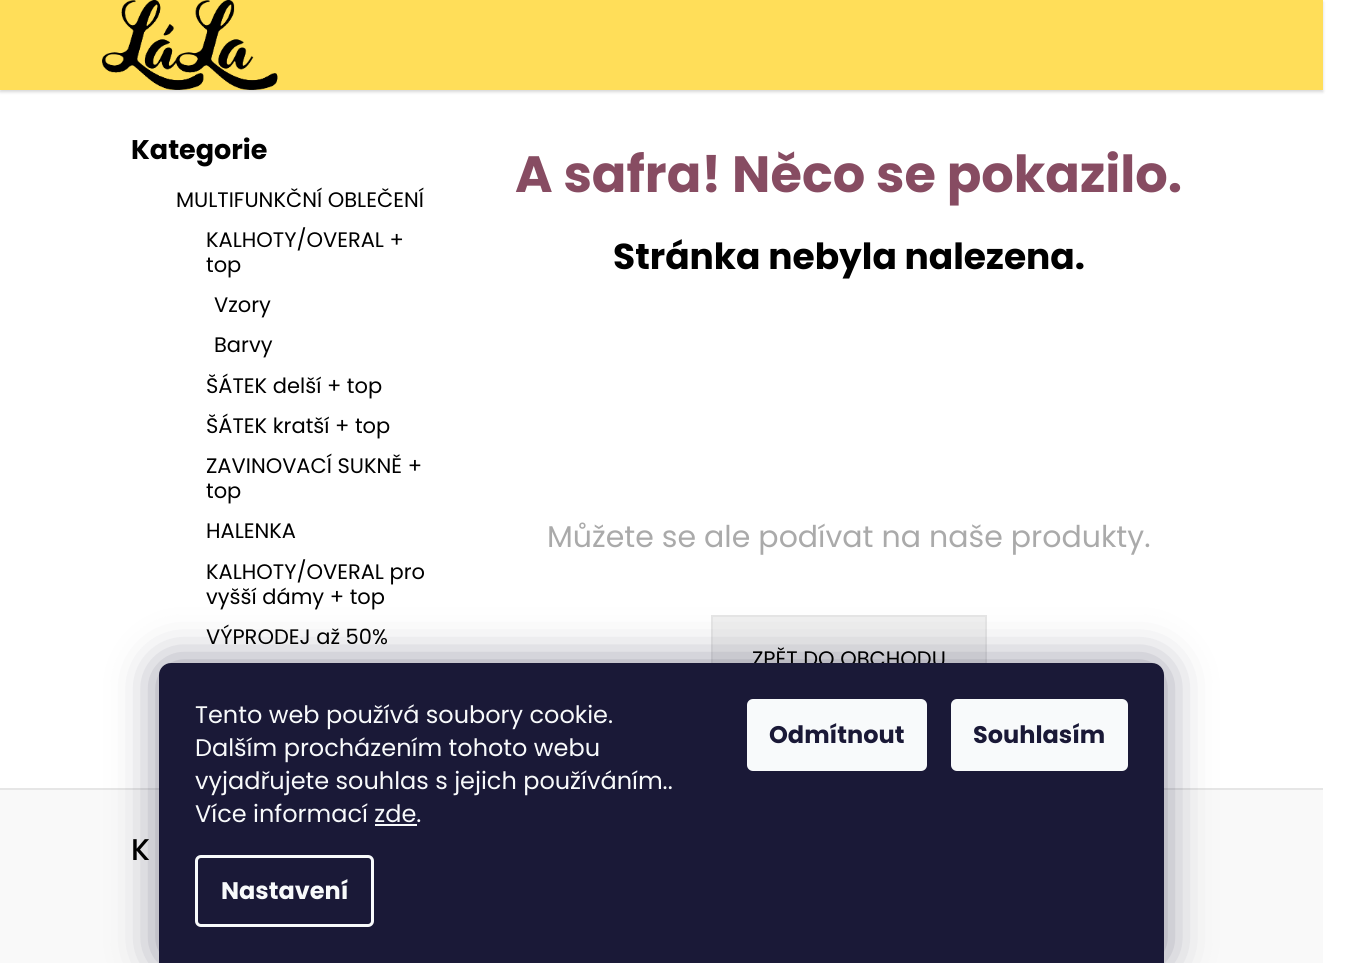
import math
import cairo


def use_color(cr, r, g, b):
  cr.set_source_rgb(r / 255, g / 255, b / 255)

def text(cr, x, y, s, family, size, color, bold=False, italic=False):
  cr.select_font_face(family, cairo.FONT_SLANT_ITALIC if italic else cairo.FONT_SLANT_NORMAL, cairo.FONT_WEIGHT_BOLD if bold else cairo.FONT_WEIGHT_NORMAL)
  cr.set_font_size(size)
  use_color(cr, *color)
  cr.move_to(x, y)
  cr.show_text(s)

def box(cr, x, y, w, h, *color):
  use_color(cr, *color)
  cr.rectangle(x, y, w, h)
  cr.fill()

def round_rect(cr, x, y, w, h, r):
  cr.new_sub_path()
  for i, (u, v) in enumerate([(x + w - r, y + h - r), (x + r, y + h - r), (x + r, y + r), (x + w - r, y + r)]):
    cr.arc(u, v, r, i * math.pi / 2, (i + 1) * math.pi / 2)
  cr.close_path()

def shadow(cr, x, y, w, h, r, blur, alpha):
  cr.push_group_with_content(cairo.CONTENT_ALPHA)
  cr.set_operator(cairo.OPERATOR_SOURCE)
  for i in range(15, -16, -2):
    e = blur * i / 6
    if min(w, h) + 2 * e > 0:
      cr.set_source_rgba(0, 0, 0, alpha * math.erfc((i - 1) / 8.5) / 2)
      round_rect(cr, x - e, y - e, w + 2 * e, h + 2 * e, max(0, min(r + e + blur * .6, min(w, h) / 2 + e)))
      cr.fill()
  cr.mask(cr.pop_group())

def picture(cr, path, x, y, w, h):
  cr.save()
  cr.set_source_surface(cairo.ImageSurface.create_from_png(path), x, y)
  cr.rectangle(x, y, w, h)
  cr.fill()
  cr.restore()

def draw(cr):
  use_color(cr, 255, 255, 255)
  cr.paint()
  use_color(cr, 0, 0, 0)
  shadow(cr, 0, 2, 1323, 90, 0, 1.5, 0.16)
  box(cr, 0, 0, 1323, 90, 255, 222, 89)
  picture(cr, "img_01.png", 102, 0, 176, 90)
  box(cr, 713, 617, 272, 46, 240, 240, 240)
  cr.rectangle(712, 616, 274, 85)
  use_color(cr, 230, 230, 230)
  cr.stroke()
  box(cr, 0, 790, 1323, 173, 249, 249, 249)
  box(cr, 0, 788, 1323, 2, 230, 230, 230)
  use_color(cr, 27, 25, 57)
  shadow(cr, 159, 663, 1005, 300, 12, 22.5, 0.5)
  text(cr, 131, 159, "Kategorie", "Poppins", 27, (0, 0, 0), bold=True)
  text(cr, 176, 207, "MULTIFUNKČNÍ OBLEČENÍ", "Poppins", 21, (0, 0, 0))
  text(cr, 206, 247, "KALHOTY/OVERAL +", "Poppins", 21, (0, 0, 0))
  text(cr, 206, 272, "top", "Poppins", 21, (0, 0, 0))
  text(cr, 214, 312, "Vzory", "Poppins", 21, (0, 0, 0))
  text(cr, 214, 352, "Barvy", "Poppins", 21, (0, 0, 0))
  text(cr, 206, 393, "ŠÁTEK delší + top", "Poppins", 21, (0, 0, 0))
  text(cr, 206, 433, "ŠÁTEK kratší + top", "Poppins", 21, (0, 0, 0))
  text(cr, 206, 473, "ZAVINOVACÍ SUKNĚ +", "Poppins", 21, (0, 0, 0))
  text(cr, 206, 498, "top", "Poppins", 21, (0, 0, 0))
  text(cr, 206, 538, "HALENKA", "Poppins", 21, (0, 0, 0))
  text(cr, 206, 579, "KALHOTY/OVERAL pro", "Poppins", 21, (0, 0, 0))
  text(cr, 206, 604, "vyšší dámy + top", "Poppins", 21, (0, 0, 0))
  text(cr, 206, 644, "VÝPRODEJ až 50%", "Poppins", 21, (0, 0, 0))
  text(cr, 515, 192, "A safra! Něco se pokazilo.", "Poppins", 51, (135, 76, 98), bold=True)
  text(cr, 613, 269, "Stránka nebyla nalezena.", "Poppins", 36, (0, 0, 0), bold=True)
  text(cr, 547, 547, "Můžete se ale podívat na naše produkty.", "Poppins", 30, (170, 170, 170))
  text(cr, 752, 666, "ZPĚT DO OBCHODU", "Poppins", 21, (0, 0, 0))
  text(cr, 131, 860, "K", "Poppins Medium", 30, (0, 0, 0))
  use_color(cr, 26, 25, 55)
  cr.new_path()
  cr.move_to(171, 663)
  cr.line_to(1152, 663)
  cr.curve_to(1158.5, 663, 1164, 668.5, 1164, 675)
  cr.line_to(1164, 963)
  cr.line_to(159, 963)
  cr.line_to(159, 675)
  cr.curve_to(159, 668.5, 164.5, 663, 171, 663)
  cr.close_path()
  cr.fill()
  text(cr, 195, 723, "Tento web používá soubory cookie.", "Poppins", 24, (248, 250, 251))
  text(cr, 195, 756, "Dalším procházením tohoto webu", "Poppins", 24, (248, 250, 251))
  text(cr, 195, 789, "vyjadřujete souhlas s jejich používáním..", "Poppins", 24, (248, 250, 251))
  text(cr, 195, 822, "Více informací zde.", "Poppins", 24, (248, 250, 251))
  box(cr, 375, 824, 42, 2, 248, 250, 251)
  round_rect(cr, 196.5, 856.5, 176, 69, 4.5)
  cr.set_line_width(3)
  cr.stroke()
  text(cr, 221, 899, "Nastavení", "Poppins", 24, (248, 250, 251), bold=True)
  round_rect(cr, 747, 699, 180, 72, 6)
  cr.fill()
  text(cr, 769, 743, "Odmítnout", "Poppins", 24, (26, 25, 55), bold=True)
  use_color(cr, 248, 250, 251)
  round_rect(cr, 951, 699, 177, 72, 6)
  cr.fill()
  text(cr, 973, 743, "Souhlasím", "Poppins", 24, (26, 25, 55), bold=True)


surface = cairo.ImageSurface(cairo.FORMAT_RGB24, 1345, 963)
cr = cairo.Context(surface)
options = cairo.FontOptions()
options.set_hint_metrics(cairo.HINT_METRICS_OFF)
options.set_hint_style(cairo.HINT_STYLE_NONE)
cr.set_font_options(options)
cr.set_miter_limit(4)
draw(cr)
surface.write_to_png("out.png")
